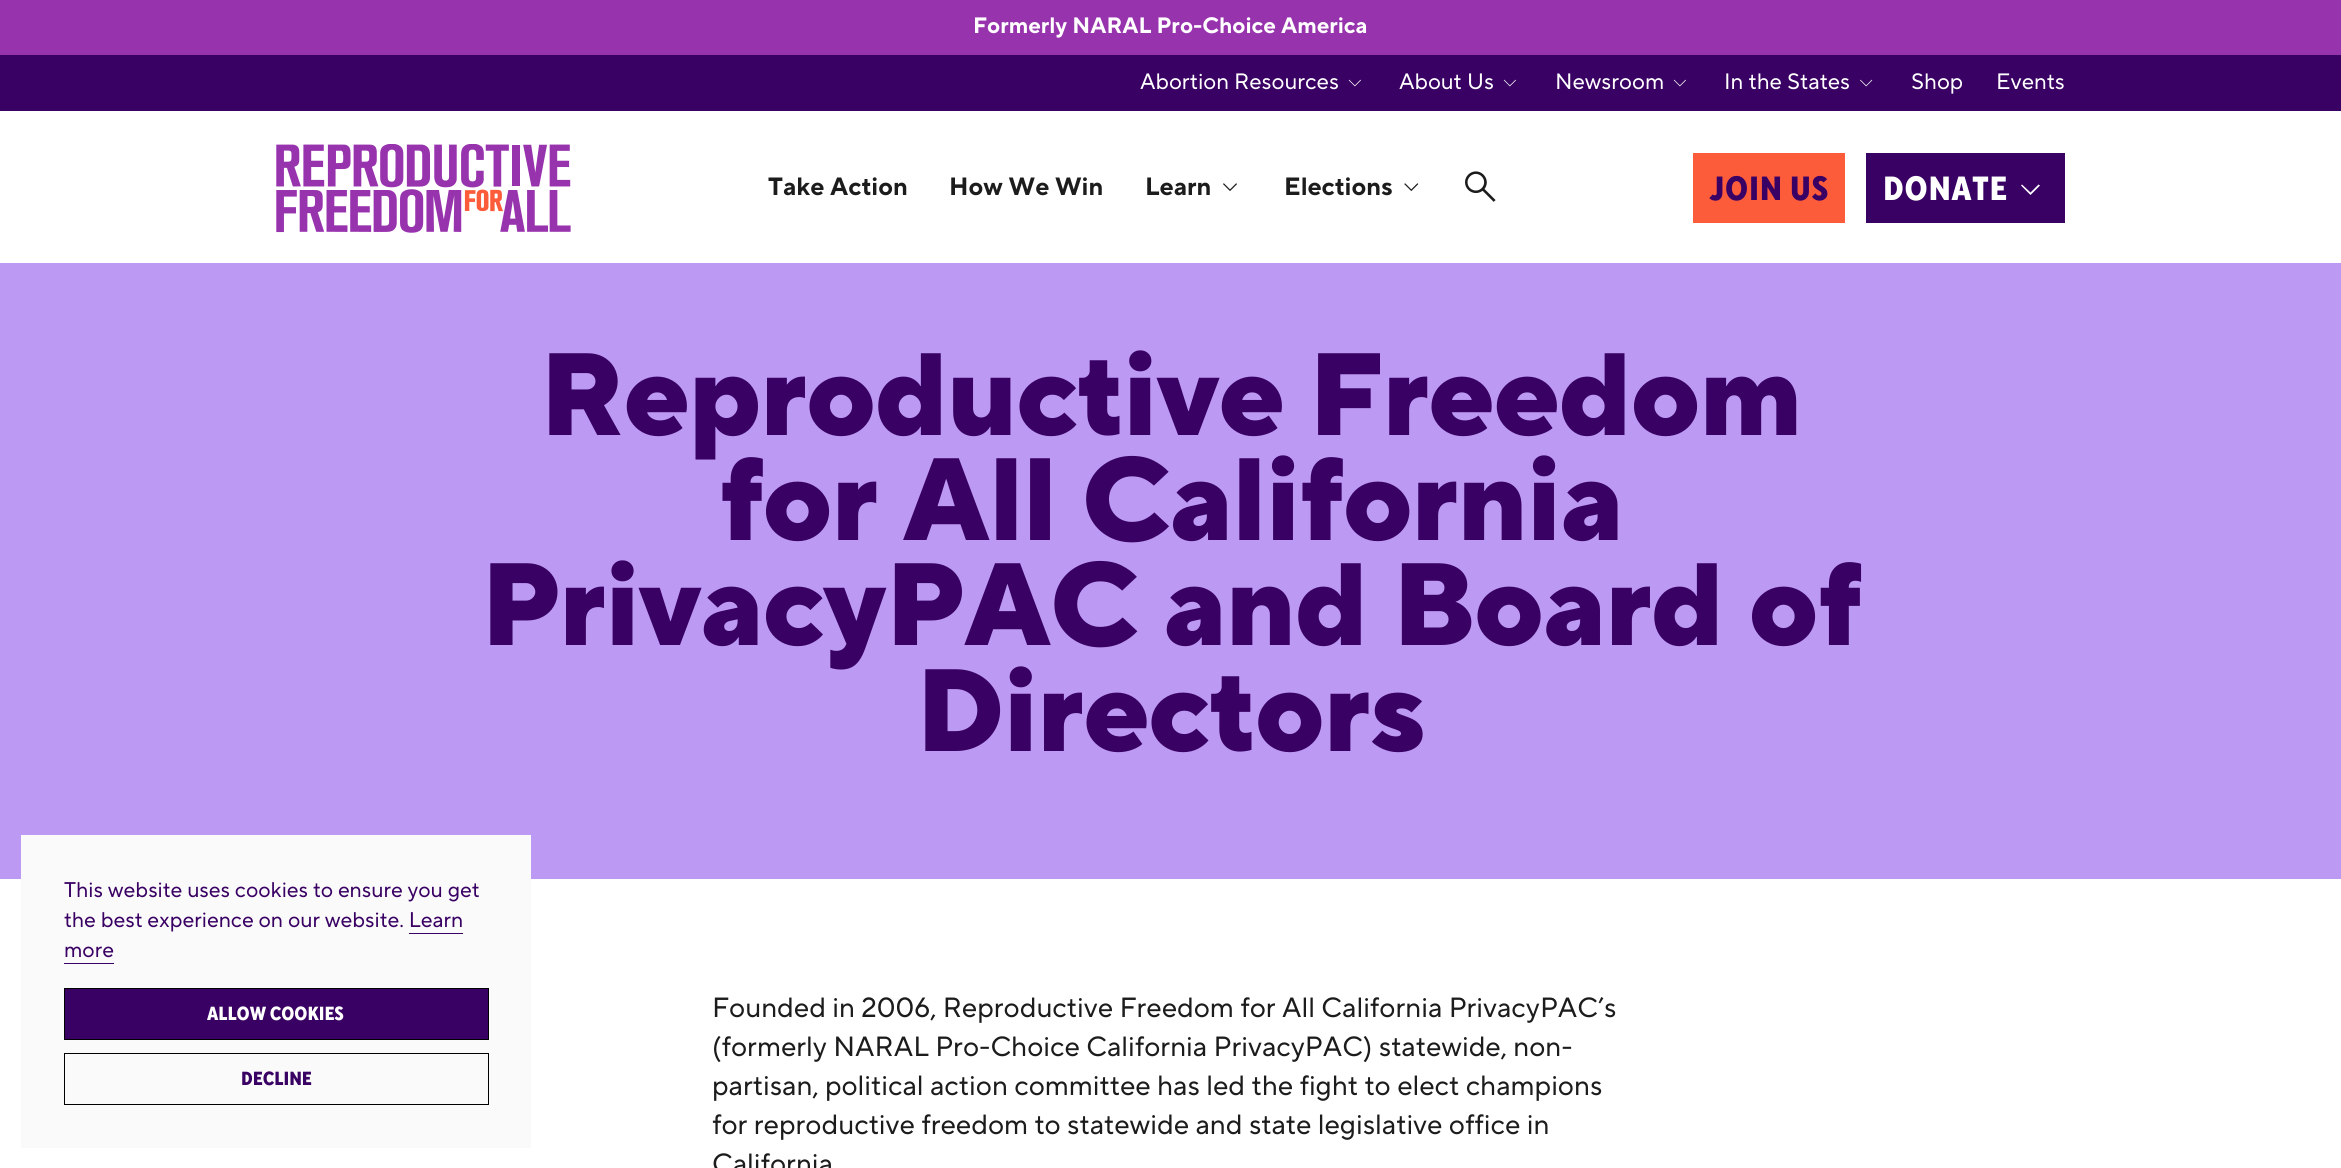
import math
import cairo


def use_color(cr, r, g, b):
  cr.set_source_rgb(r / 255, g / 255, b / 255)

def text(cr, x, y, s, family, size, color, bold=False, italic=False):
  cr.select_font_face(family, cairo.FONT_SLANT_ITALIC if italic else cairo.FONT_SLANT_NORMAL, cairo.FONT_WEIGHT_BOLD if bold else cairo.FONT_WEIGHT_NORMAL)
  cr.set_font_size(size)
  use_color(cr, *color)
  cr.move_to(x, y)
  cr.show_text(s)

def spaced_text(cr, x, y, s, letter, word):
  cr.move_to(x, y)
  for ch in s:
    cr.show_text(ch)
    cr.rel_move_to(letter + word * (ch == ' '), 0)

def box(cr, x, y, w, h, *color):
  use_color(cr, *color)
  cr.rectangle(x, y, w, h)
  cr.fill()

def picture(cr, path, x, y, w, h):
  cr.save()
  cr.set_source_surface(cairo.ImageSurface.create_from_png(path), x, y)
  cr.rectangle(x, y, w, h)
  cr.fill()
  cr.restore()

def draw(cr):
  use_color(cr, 255, 255, 255)
  cr.paint()
  box(cr, 0, 263, 2341, 616, 188, 153, 242)
  box(cr, 21, 835, 510, 313, 250, 250, 250)
  box(cr, 409, 933, 54, 1, 57, 1, 99)
  box(cr, 64, 963, 50, 1, 57, 1, 99)
  cr.rectangle(64.5, 988.5, 424, 51)
  cr.fill_preserve()
  use_color(cr, 0, 0, 0)
  cr.set_line_width(1)
  cr.stroke()
  cr.rectangle(64.5, 1053.5, 424, 51)
  cr.stroke()
  box(cr, 0, 0, 2341, 55, 152, 51, 174)
  box(cr, 0, 55, 2341, 56, 57, 1, 99)
  picture(cr, "img_01.png", 1348, 79, 13, 8)
  picture(cr, "img_01.png", 1503, 79, 13, 8)
  picture(cr, "img_01.png", 1673, 79, 13, 8)
  picture(cr, "img_02.png", 1860, 79, 13, 8)
  picture(cr, "img_03.png", 276, 144, 295, 89)
  picture(cr, "img_04.png", 1223, 183, 14, 8)
  picture(cr, "img_05.png", 1404, 183, 15, 8)
  picture(cr, "img_06.png", 1465, 171, 31, 31)
  box(cr, 1693, 153, 152, 70, 253, 92, 59)
  box(cr, 1866, 153, 199, 70, 57, 1, 99)
  use_color(cr, 255, 255, 255)
  cr.new_path()
  cr.move_to(2030.5, 195)
  cr.line_to(2021, 185.5)
  cr.line_to(2022, 184.5)
  cr.line_to(2030.5, 192.5)
  cr.line_to(2038.5, 184.5)
  cr.line_to(2040, 185.5)
  cr.close_path()
  cr.fill()
  text(cr, 64, 897, "This website uses cookies to ensure you get", "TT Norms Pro", 21.25, (57, 1, 99))
  text(cr, 64, 927, "the best experience on our website. Learn", "TT Norms Pro", 21.25, (57, 1, 99))
  text(cr, 64, 957, "more", "TT Norms Pro", 21.25, (57, 1, 99))
  text(cr, 207, 1020, "ALLOW COOKIES", "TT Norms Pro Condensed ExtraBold", 19, (255, 255, 255))
  text(cr, 241, 1085, "DECLINE", "TT Norms Pro Condensed ExtraBold", 19, (57, 1, 99))
  text(cr, 973, 33, "Formerly NARAL Pro-Choice America", "TT Norms Pro", 22.25, (255, 255, 255), bold=True)
  text(cr, 1140, 89, "Abortion Resources", "TT Norms Pro", 22.25, (255, 255, 255))
  text(cr, 1399, 89, "About Us", "TT Norms Pro", 22.25, (255, 255, 255))
  text(cr, 1555, 89, "Newsroom", "TT Norms Pro", 22.25, (255, 255, 255))
  text(cr, 1724, 89, "In the States", "TT Norms Pro", 22.25, (255, 255, 255))
  text(cr, 1911, 89, "Shop", "TT Norms Pro", 22.25, (255, 255, 255))
  text(cr, 1996, 89, "Events", "TT Norms Pro", 22.25, (255, 255, 255))
  text(cr, 768, 195, "Take Action", "TT Norms Pro", 25, (28, 28, 28), bold=True)
  text(cr, 949, 195, "How We Win", "TT Norms Pro", 25, (28, 28, 28), bold=True)
  text(cr, 1145, 195, "Learn", "TT Norms Pro", 25, (28, 28, 28), bold=True)
  text(cr, 1284, 195, "Elections", "TT Norms Pro", 25, (28, 28, 28), bold=True)
  cr.select_font_face("TT Norms Pro Condensed ExtraBold")
  cr.set_font_size(33.5)
  use_color(cr, 57, 1, 99)
  spaced_text(cr, 1710, 200, "JOIN US", 0.75, 0)
  use_color(cr, 255, 255, 255)
  spaced_text(cr, 1883, 200, "DONATE", 0.75, 0)
  cr.select_font_face("TT Norms Pro ExtraBold")
  cr.set_font_size(116.8)
  use_color(cr, 57, 1, 99)
  spaced_text(cr, 540, 435, "Reproductive Freedom", -1.4, 0)
  spaced_text(cr, 719, 540, "for All California", -1.4, 0)
  spaced_text(cr, 481, 645, "PrivacyPAC and Board of", -1.4, 0)
  spaced_text(cr, 916, 751, "Directors", -1.4, 0)
  text(cr, 712, 1017, "Founded in 2006, Reproductive Freedom for All California PrivacyPAC’s", "TT Norms Pro", 27.8, (28, 28, 28))
  text(cr, 712, 1056, "(formerly NARAL Pro-Choice California PrivacyPAC) statewide, non-", "TT Norms Pro", 27.8, (28, 28, 28))
  text(cr, 712, 1095, "partisan, political action committee has led the fight to elect champions", "TT Norms Pro", 27.8, (28, 28, 28))
  text(cr, 712, 1134, "for reproductive freedom to statewide and state legislative office in", "TT Norms Pro", 27.8, (28, 28, 28))
  text(cr, 712, 1173, "California", "TT Norms Pro", 27.8, (28, 28, 28))


surface = cairo.ImageSurface(cairo.FORMAT_RGB24, 2341, 1168)
cr = cairo.Context(surface)
options = cairo.FontOptions()
options.set_hint_metrics(cairo.HINT_METRICS_OFF)
options.set_hint_style(cairo.HINT_STYLE_NONE)
cr.set_font_options(options)
cr.set_miter_limit(4)
draw(cr)
surface.write_to_png("out.png")
